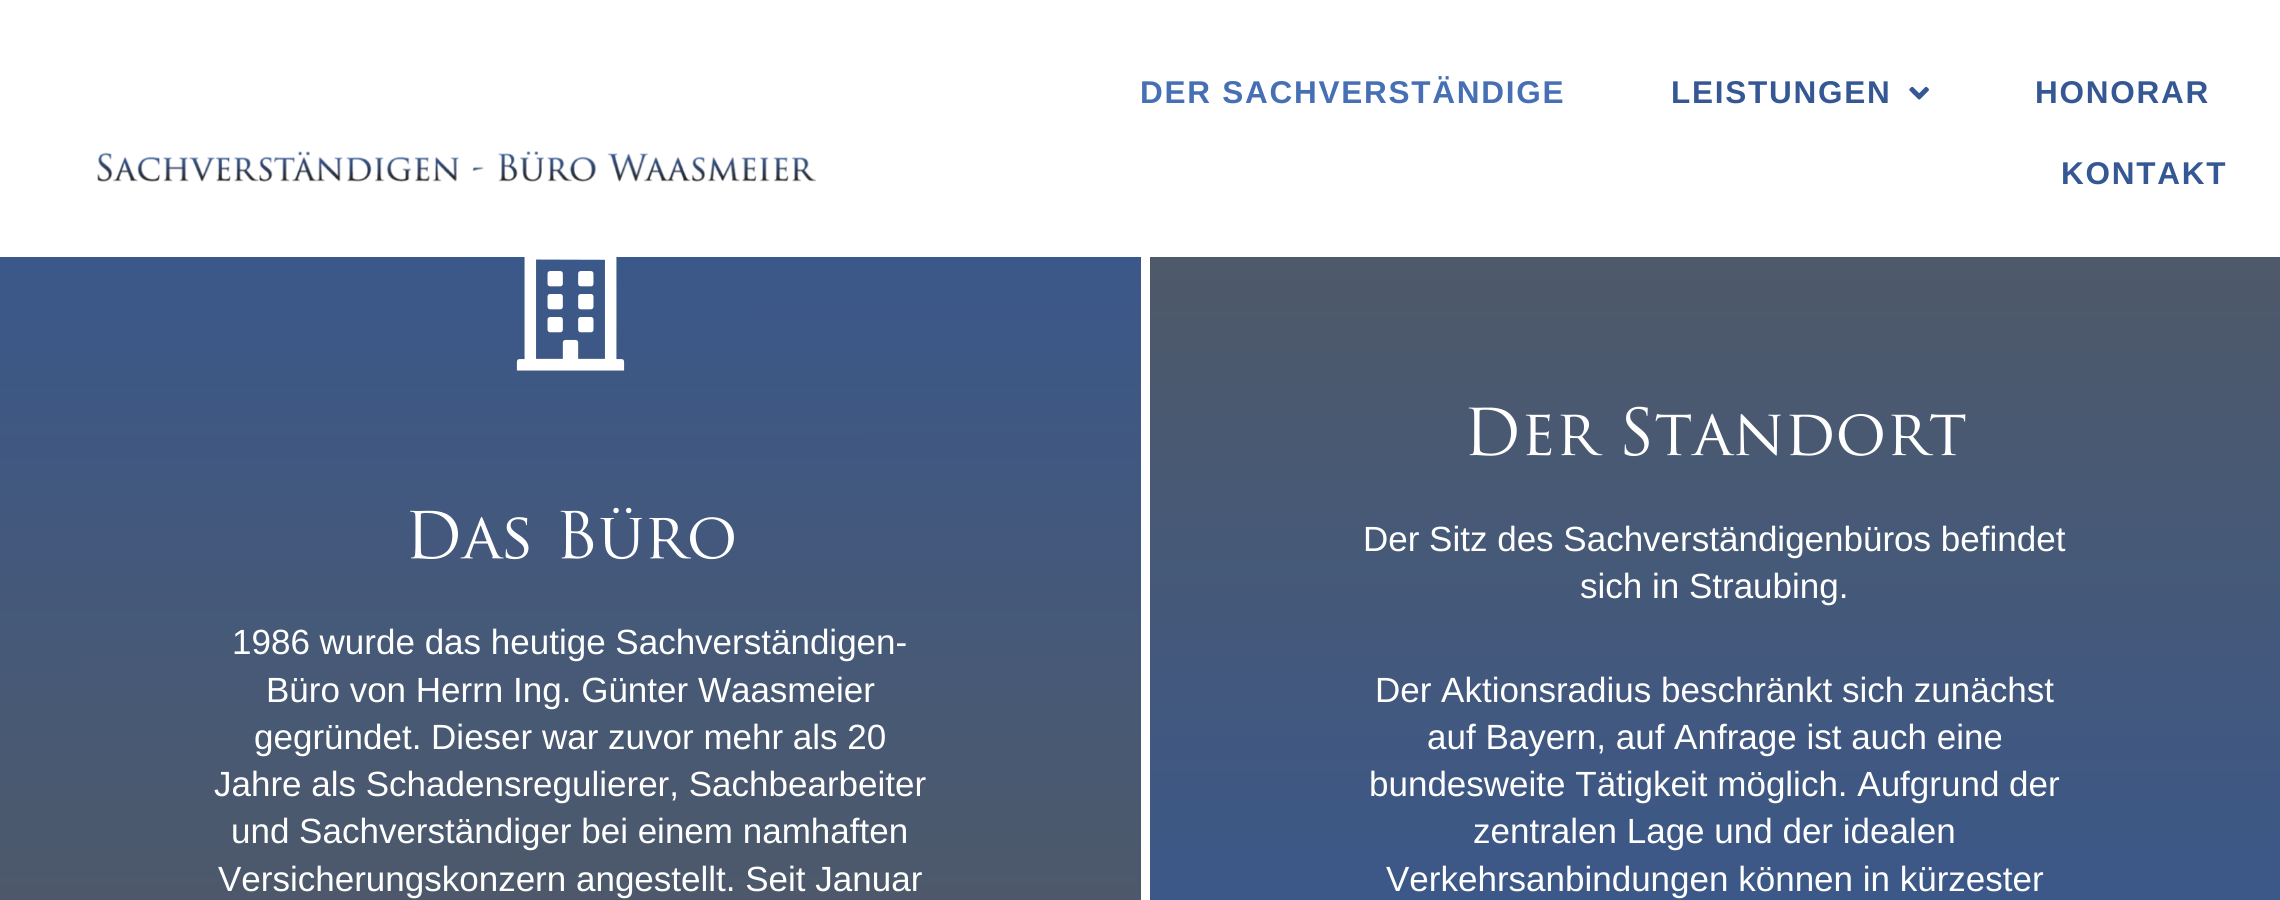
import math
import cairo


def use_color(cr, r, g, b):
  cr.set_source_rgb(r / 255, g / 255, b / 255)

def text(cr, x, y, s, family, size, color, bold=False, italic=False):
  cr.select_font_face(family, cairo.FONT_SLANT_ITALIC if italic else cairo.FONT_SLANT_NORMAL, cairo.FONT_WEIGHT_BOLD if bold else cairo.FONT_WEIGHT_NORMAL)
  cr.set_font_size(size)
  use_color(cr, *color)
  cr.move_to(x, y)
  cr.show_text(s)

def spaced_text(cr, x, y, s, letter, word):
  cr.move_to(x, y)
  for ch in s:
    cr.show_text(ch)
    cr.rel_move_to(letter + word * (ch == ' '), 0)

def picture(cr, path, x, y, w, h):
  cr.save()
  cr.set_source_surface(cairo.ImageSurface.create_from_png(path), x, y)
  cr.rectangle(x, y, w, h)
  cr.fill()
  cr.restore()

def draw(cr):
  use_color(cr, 255, 255, 255)
  cr.paint()
  picture(cr, "img_01.png", 97, 151, 720, 31)
  picture(cr, "img_02.png", 1909, 86, 20, 14)
  gradient = cairo.LinearGradient(570, 58, 571, 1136)
  gradient.add_color_stop_rgba(0, 0.208, 0.345, 0.58, 1)
  gradient.add_color_stop_rgba(1, 0.329, 0.349, 0.373, 1)
  cr.set_source(gradient)
  cr.rectangle(0, 257, 1141, 643)
  cr.fill()
  picture(cr, "img_03.png", 516, 257, 109, 114)
  picture(cr, "img_04.png", 410, 507, 324, 53)
  gradient = cairo.LinearGradient(1715, 58, 1715, 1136)
  gradient.add_color_stop_rgba(0, 0.329, 0.349, 0.373, 1)
  gradient.add_color_stop_rgba(1, 0.208, 0.345, 0.58, 1)
  cr.set_source(gradient)
  cr.rectangle(1150, 257, 1130, 643)
  cr.fill()
  picture(cr, "img_05.png", 1468, 406, 498, 51)
  cr.select_font_face("Liberation Sans", cairo.FONT_SLANT_NORMAL, cairo.FONT_WEIGHT_BOLD)
  cr.set_font_size(31.5)
  use_color(cr, 71, 111, 180)
  spaced_text(cr, 1140, 103, "DER SACHVERSTÄNDIGE", 1.75, 0)
  use_color(cr, 53, 88, 148)
  spaced_text(cr, 1671, 103, "LEISTUNGEN", 1.75, 0)
  spaced_text(cr, 2035, 103, "HONORAR", 1.75, 0)
  spaced_text(cr, 2061, 184, "KONTAKT", 1.75, 0)
  text(cr, 232, 654, "1986 wurde das heutige Sachverständigen-", "Liberation Sans", 35, (255, 255, 255))
  text(cr, 266, 702, "Büro von Herrn Ing. Günter Waasmeier", "Liberation Sans", 35, (255, 255, 255))
  text(cr, 254, 749, "gegründet. Dieser war zuvor mehr als 20", "Liberation Sans", 35, (255, 255, 255))
  text(cr, 214, 796, "Jahre als Schadensregulierer, Sachbearbeiter", "Liberation Sans", 35, (255, 255, 255))
  text(cr, 231, 843, "und Sachverständiger bei einem namhaften", "Liberation Sans", 35, (255, 255, 255))
  text(cr, 218, 891, "Versicherungskonzern angestellt. Seit Januar", "Liberation Sans", 35, (255, 255, 255))
  text(cr, 1363, 551, "Der Sitz des Sachverständigenbüros befindet", "Liberation Sans", 35, (255, 255, 255))
  text(cr, 1580, 598, "sich in Straubing.", "Liberation Sans", 35, (255, 255, 255))
  text(cr, 1375, 702, "Der Aktionsradius beschränkt sich zunächst", "Liberation Sans", 35, (255, 255, 255))
  text(cr, 1427, 749, "auf Bayern, auf Anfrage ist auch eine", "Liberation Sans", 35, (255, 255, 255))
  text(cr, 1369, 796, "bundesweite Tätigkeit möglich. Aufgrund der", "Liberation Sans", 35, (255, 255, 255))
  text(cr, 1473, 843, "zentralen Lage und der idealen", "Liberation Sans", 35, (255, 255, 255))
  text(cr, 1386, 891, "Verkehrsanbindungen können in kürzester", "Liberation Sans", 35, (255, 255, 255))


surface = cairo.ImageSurface(cairo.FORMAT_RGB24, 2280, 900)
cr = cairo.Context(surface)
options = cairo.FontOptions()
options.set_hint_metrics(cairo.HINT_METRICS_OFF)
options.set_hint_style(cairo.HINT_STYLE_NONE)
cr.set_font_options(options)
cr.set_miter_limit(4)
draw(cr)
surface.write_to_png("out.png")
